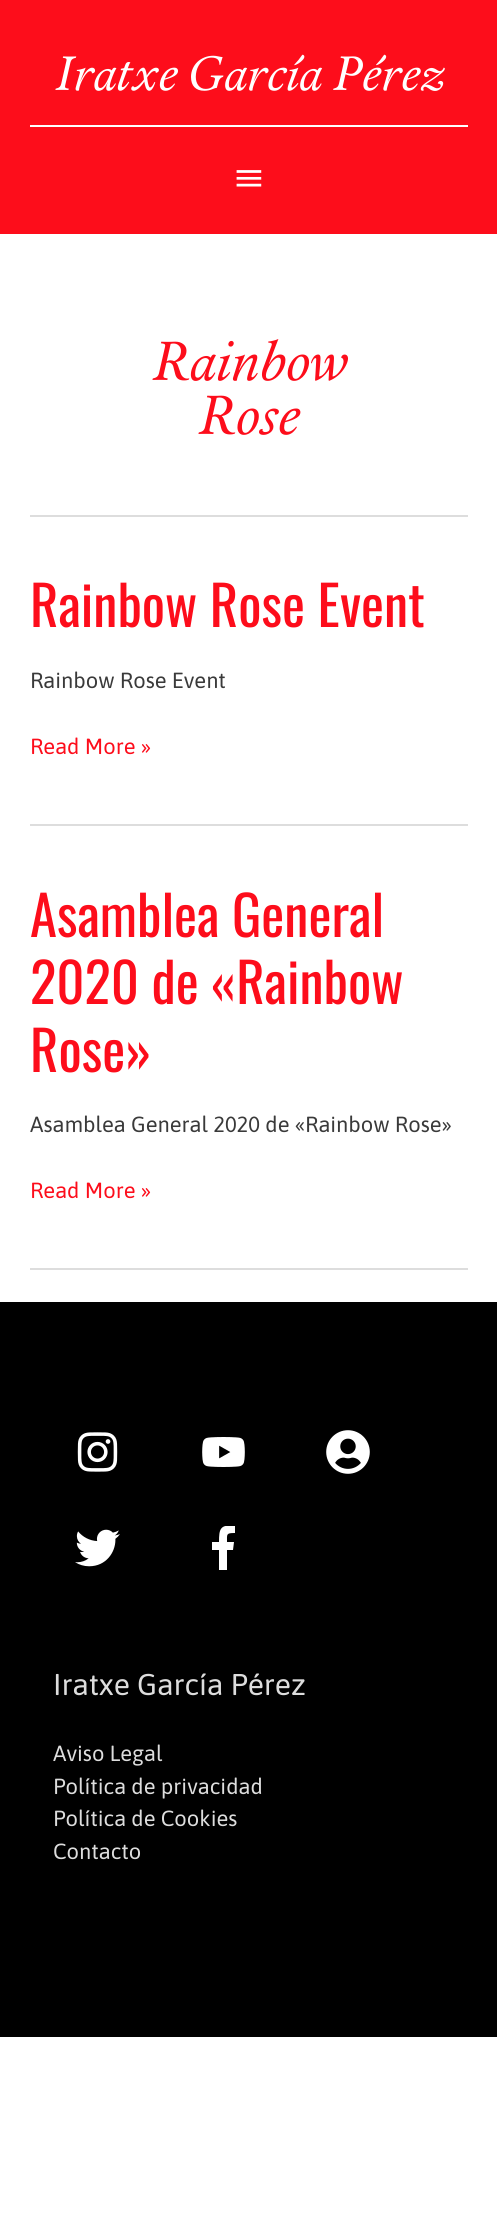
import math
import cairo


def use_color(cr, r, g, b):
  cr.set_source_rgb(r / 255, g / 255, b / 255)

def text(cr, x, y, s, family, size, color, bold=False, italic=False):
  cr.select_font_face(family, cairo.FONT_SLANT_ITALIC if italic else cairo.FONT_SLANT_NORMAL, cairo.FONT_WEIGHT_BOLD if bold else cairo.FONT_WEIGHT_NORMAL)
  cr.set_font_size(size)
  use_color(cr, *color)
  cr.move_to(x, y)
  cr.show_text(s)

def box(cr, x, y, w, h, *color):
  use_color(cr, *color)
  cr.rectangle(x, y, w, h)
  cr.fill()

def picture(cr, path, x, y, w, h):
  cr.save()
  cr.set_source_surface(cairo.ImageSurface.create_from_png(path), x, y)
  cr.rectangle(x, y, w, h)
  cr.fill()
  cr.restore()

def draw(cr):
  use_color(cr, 255, 255, 255)
  cr.paint()
  box(cr, 0, 0, 497, 234, 253, 13, 27)
  box(cr, 30, 125, 438, 2, 255, 255, 255)
  picture(cr, "img_01.png", 236, 170, 26, 17)
  box(cr, 30, 515, 438, 2, 221, 221, 221)
  box(cr, 30, 824, 438, 2, 221, 221, 221)
  box(cr, 30, 1268, 438, 2, 221, 221, 221)
  box(cr, 0, 1302, 497, 735, 0, 0, 0)
  picture(cr, "img_02.png", 77, 1432, 41, 40)
  picture(cr, "img_03.png", 202, 1437, 43, 30)
  picture(cr, "img_04.png", 326, 1430, 44, 44)
  picture(cr, "img_05.png", 75, 1529, 45, 38)
  cr.save()
  cr.rectangle(201, 1526, 45, 45)
  cr.clip()
  use_color(cr, 255, 255, 255)
  cr.new_path()
  cr.move_to(219, 1570)
  cr.line_to(219, 1550)
  cr.line_to(212, 1550)
  cr.line_to(212, 1542)
  cr.line_to(219, 1542)
  cr.curve_to(219, 1529, 220, 1524, 235, 1526)
  cr.line_to(235, 1533)
  cr.curve_to(226, 1533, 227, 1534, 227, 1542)
  cr.line_to(234, 1542)
  cr.line_to(233, 1550)
  cr.line_to(227, 1550)
  cr.line_to(227, 1570)
  cr.fill()
  cr.restore()
  text(cr, 55, 90, "Iratxe García Pérez", "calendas", 48, (255, 255, 255), italic=True)
  text(cr, 152, 380, "Rainbow", "calendas", 54.75, (253, 13, 27), italic=True)
  text(cr, 198, 434, "Rose", "calendas", 54.75, (253, 13, 27), italic=True)
  text(cr, 30, 627, "Rainbow Rose Event", "Oswald", 54.75, (253, 13, 27))
  text(cr, 30, 688, "Rainbow Rose Event", "Asap", 21.9, (58, 58, 58))
  text(cr, 30, 754, "Read More »", "Asap", 21.9, (253, 13, 27))
  text(cr, 30, 937, "Asamblea General", "Oswald", 54.75, (253, 13, 27))
  text(cr, 30, 1004, "2020 de «Rainbow", "Oswald", 54.75, (253, 13, 27))
  text(cr, 30, 1072, "Rose»", "Oswald", 54.75, (253, 13, 27))
  text(cr, 30, 1132, "Asamblea General 2020 de «Rainbow Rose»", "Asap", 21.9, (58, 58, 58))
  text(cr, 30, 1198, "Read More »", "Asap", 21.9, (253, 13, 27))
  text(cr, 53, 1695, "Iratxe García Pérez", "Asap", 30, (221, 221, 221))
  text(cr, 53, 1761, "Aviso Legal", "Asap", 21.9, (221, 221, 221))
  text(cr, 53, 1794, "Política de privacidad", "Asap", 21.9, (221, 221, 221))
  text(cr, 53, 1826, "Política de Cookies", "Asap", 21.9, (221, 221, 221))
  text(cr, 53, 1859, "Contacto", "Asap", 21.9, (221, 221, 221))


surface = cairo.ImageSurface(cairo.FORMAT_RGB24, 497, 2233)
cr = cairo.Context(surface)
options = cairo.FontOptions()
options.set_hint_metrics(cairo.HINT_METRICS_OFF)
options.set_hint_style(cairo.HINT_STYLE_NONE)
cr.set_font_options(options)
cr.set_miter_limit(4)
draw(cr)
surface.write_to_png("out.png")
